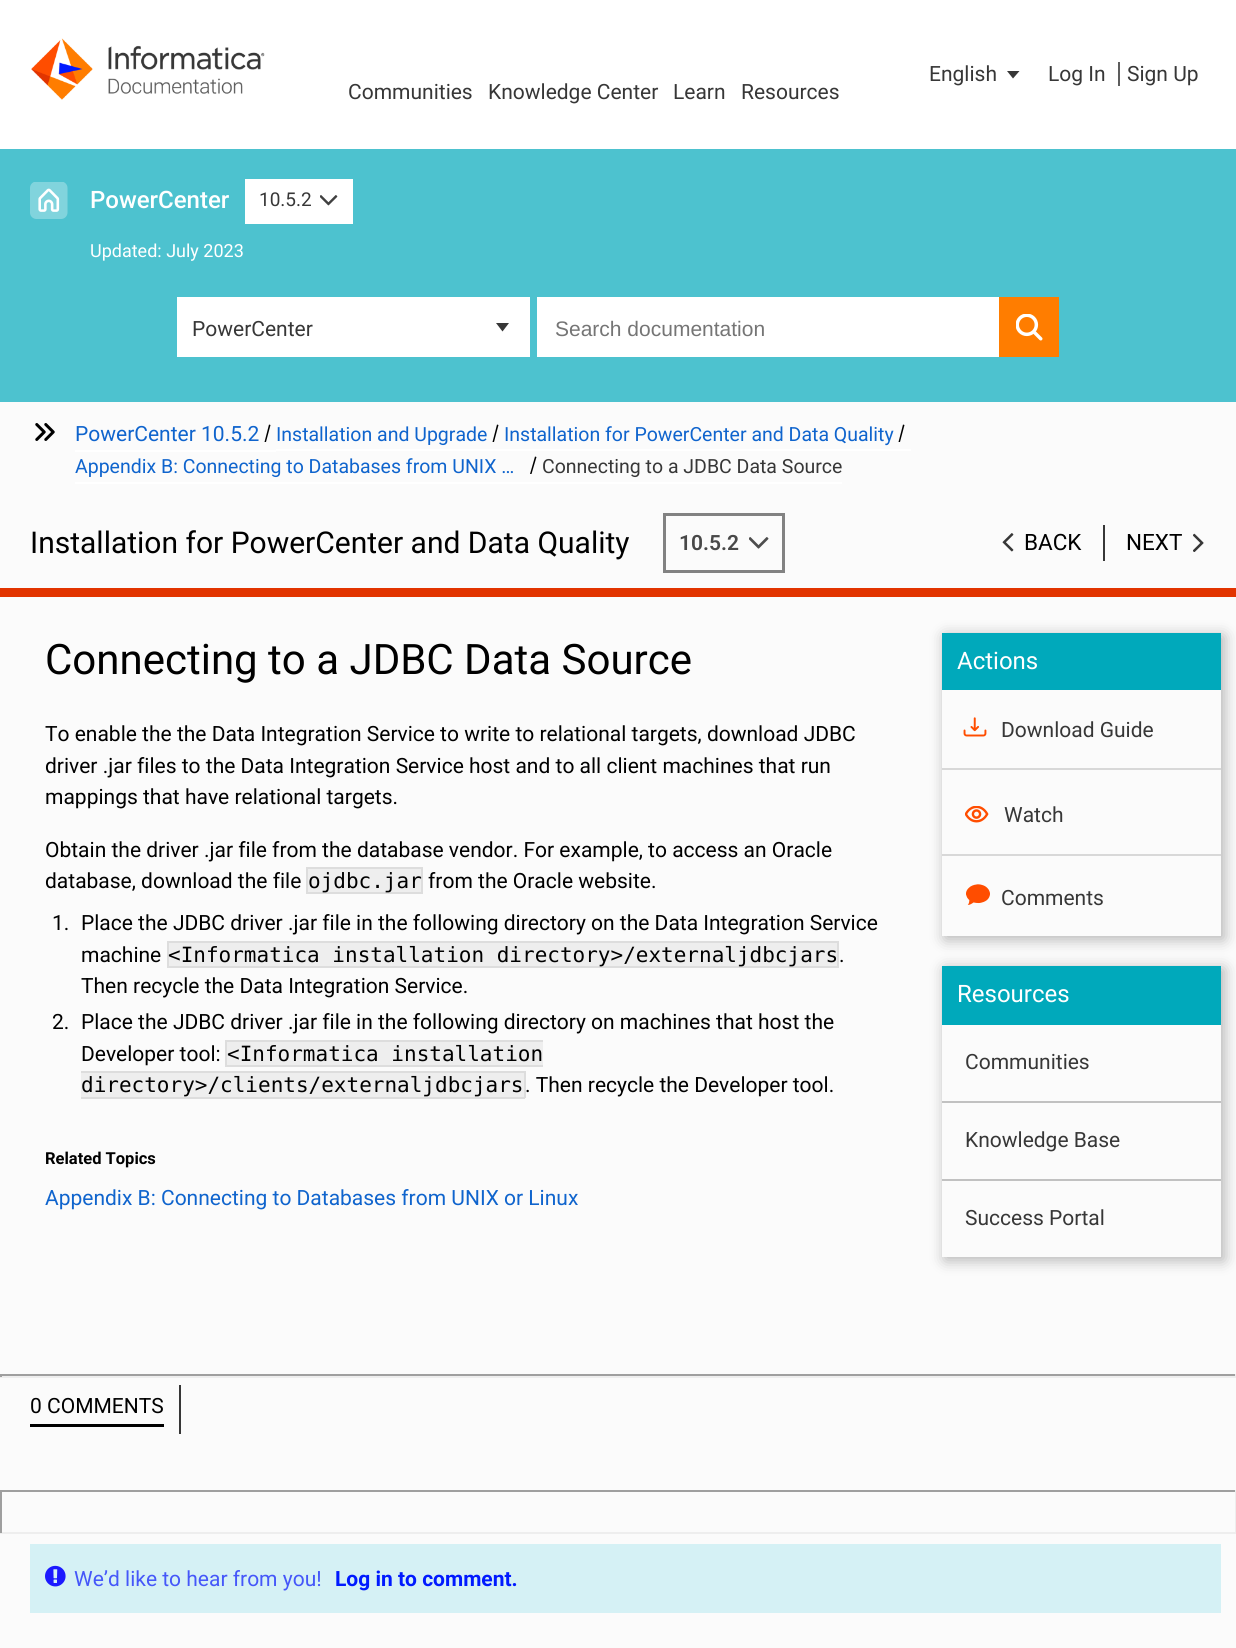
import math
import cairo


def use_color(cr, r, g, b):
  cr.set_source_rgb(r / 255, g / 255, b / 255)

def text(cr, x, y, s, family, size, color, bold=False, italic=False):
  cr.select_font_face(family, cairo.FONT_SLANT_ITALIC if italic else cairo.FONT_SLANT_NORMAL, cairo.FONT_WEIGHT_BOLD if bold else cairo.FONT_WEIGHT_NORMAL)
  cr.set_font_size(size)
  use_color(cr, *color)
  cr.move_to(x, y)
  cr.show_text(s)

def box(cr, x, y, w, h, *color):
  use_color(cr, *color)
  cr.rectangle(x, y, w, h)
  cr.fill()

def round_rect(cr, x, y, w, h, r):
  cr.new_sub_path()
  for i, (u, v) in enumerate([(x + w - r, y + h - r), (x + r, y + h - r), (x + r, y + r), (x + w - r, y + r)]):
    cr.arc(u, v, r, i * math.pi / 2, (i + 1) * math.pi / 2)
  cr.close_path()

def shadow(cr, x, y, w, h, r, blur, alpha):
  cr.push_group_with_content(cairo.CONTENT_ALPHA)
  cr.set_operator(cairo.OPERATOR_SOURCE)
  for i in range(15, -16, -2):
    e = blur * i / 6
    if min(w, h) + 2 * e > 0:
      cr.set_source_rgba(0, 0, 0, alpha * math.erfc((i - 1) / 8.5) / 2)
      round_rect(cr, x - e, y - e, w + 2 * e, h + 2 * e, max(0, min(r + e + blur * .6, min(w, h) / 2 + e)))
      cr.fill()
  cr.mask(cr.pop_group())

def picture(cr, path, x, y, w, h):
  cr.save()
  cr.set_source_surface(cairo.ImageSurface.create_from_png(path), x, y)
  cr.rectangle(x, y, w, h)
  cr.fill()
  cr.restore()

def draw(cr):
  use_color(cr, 255, 255, 255)
  cr.paint()
  picture(cr, "img_01.png", 31, 38, 234, 62)
  use_color(cr, 55, 55, 55)
  cr.new_path()
  cr.move_to(1019.5, 71)
  cr.line_to(1013, 78.5)
  cr.line_to(1007, 71)
  cr.close_path()
  cr.fill()
  box(cr, 1118, 62, 2, 24, 93, 93, 93)
  box(cr, 0, 149, 1236, 253, 77, 194, 207)
  picture(cr, "img_02.png", 30, 182, 38, 37)
  box(cr, 245, 179, 108, 45, 255, 255, 255)
  picture(cr, "img_03.png", 320, 195, 18, 11)
  box(cr, 177, 297, 353, 60, 255, 255, 255)
  use_color(cr, 55, 55, 55)
  cr.new_path()
  cr.move_to(509, 323)
  cr.line_to(502.5, 331.5)
  cr.line_to(496, 323)
  cr.close_path()
  cr.fill()
  box(cr, 537, 297, 462, 60, 255, 255, 255)
  box(cr, 999, 297, 60, 60, 255, 125, 0)
  picture(cr, "img_04.png", 1016, 314, 27, 27)
  box(cr, 0, 402, 1236, 1246, 251, 251, 251)
  picture(cr, "img_05.png", 35, 423, 20, 18)
  box(cr, 75, 450, 201, 2, 255, 255, 255)
  use_color(cr, 0, 0, 0)
  cr.new_path()
  cr.move_to(269, 424.5)
  cr.line_to(270.5, 425)
  cr.line_to(266, 442)
  cr.line_to(264.5, 442)
  cr.close_path()
  cr.fill()
  box(cr, 276, 449, 635, 2, 255, 255, 255)
  use_color(cr, 0, 0, 0)
  cr.new_path()
  cr.move_to(497, 424.5)
  cr.line_to(498.5, 425)
  cr.line_to(494, 442)
  cr.line_to(492.5, 442)
  cr.close_path()
  cr.fill()
  cr.new_path()
  cr.move_to(903, 424.5)
  cr.line_to(904.5, 425)
  cr.line_to(900, 442)
  cr.line_to(898.5, 442)
  cr.close_path()
  cr.fill()
  box(cr, 75, 482, 767, 2, 255, 255, 255)
  use_color(cr, 0, 0, 0)
  cr.new_path()
  cr.move_to(535, 456.5)
  cr.line_to(536.5, 457)
  cr.line_to(531.5, 474)
  cr.line_to(530, 474)
  cr.close_path()
  cr.fill()
  cr.rectangle(664.5, 514.5, 119, 57)
  use_color(cr, 130, 130, 130)
  cr.set_line_width(3)
  cr.stroke()
  picture(cr, "img_06.png", 749, 537, 20, 12)
  picture(cr, "img_07.png", 1002, 533, 12, 19)
  box(cr, 1103, 525, 2, 36, 55, 55, 55)
  picture(cr, "img_08.png", 1193, 533, 11, 19)
  box(cr, 0, 588, 1236, 9, 226, 52, 0)
  use_color(cr, 238, 238, 238)
  cr.rectangle(307, 868, 115, 25)
  cr.fill_preserve()
  use_color(cr, 221, 221, 221)
  cr.set_line_width(2)
  cr.stroke()
  use_color(cr, 238, 238, 238)
  cr.rectangle(168, 942, 670, 25)
  cr.fill_preserve()
  use_color(cr, 221, 221, 221)
  cr.stroke()
  box(cr, 227, 1042, 316, 23, 238, 238, 238)
  box(cr, 225, 1040, 318, 2, 221, 221, 221)
  box(cr, 225, 1065, 318, 2, 221, 221, 221)
  box(cr, 225, 1040, 2, 27, 221, 221, 221)
  box(cr, 81, 1073, 443, 24, 238, 238, 238)
  box(cr, 81, 1071, 444, 2, 221, 221, 221)
  box(cr, 524, 1071, 2, 27, 221, 221, 221)
  box(cr, 81, 1097, 444, 2, 221, 221, 221)
  cr.save()
  cr.set_fill_rule(cairo.FILL_RULE_EVEN_ODD)
  cr.new_path()
  cr.move_to(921, 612)
  cr.line_to(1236, 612)
  cr.line_to(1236, 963)
  cr.line_to(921, 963)
  cr.close_path()
  cr.move_to(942, 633)
  cr.line_to(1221, 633)
  cr.line_to(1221, 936)
  cr.line_to(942, 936)
  cr.close_path()
  cr.clip()
  use_color(cr, 0, 0, 0)
  shadow(cr, 945, 636, 279, 303, 0, 7.5, 0.3)
  cr.restore()
  box(cr, 942, 633, 279, 57, 0, 169, 187)
  box(cr, 942, 768, 279, 2, 216, 216, 216)
  picture(cr, "img_09.png", 963, 717, 24, 20)
  box(cr, 942, 854, 279, 2, 216, 216, 216)
  picture(cr, "img_10.png", 965, 806, 24, 17)
  picture(cr, "img_11.png", 966, 884, 24, 21)
  cr.save()
  cr.set_fill_rule(cairo.FILL_RULE_EVEN_ODD)
  cr.new_path()
  cr.move_to(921, 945)
  cr.line_to(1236, 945)
  cr.line_to(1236, 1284)
  cr.line_to(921, 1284)
  cr.close_path()
  cr.move_to(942, 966)
  cr.line_to(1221, 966)
  cr.line_to(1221, 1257)
  cr.line_to(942, 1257)
  cr.close_path()
  cr.clip()
  use_color(cr, 0, 0, 0)
  shadow(cr, 945, 969, 279, 291, 0, 7.5, 0.3)
  cr.restore()
  box(cr, 942, 966, 279, 59, 0, 169, 187)
  box(cr, 942, 1101, 279, 2, 193, 193, 193)
  box(cr, 942, 1179, 279, 2, 193, 193, 193)
  box(cr, 0, 1374, 1236, 2, 159, 159, 159)
  box(cr, 1235, 1374, 1, 3, 238, 238, 238)
  box(cr, 0, 1376, 1236, 2, 238, 238, 238)
  box(cr, 0, 1374, 2, 3, 159, 159, 159)
  box(cr, 30, 1424, 134, 3, 0, 0, 0)
  box(cr, 179, 1385, 2, 49, 55, 55, 55)
  box(cr, 0, 1490, 1236, 2, 159, 159, 159)
  box(cr, 1235, 1490, 1, 43, 238, 238, 238)
  box(cr, 0, 1532, 1236, 2, 238, 238, 238)
  box(cr, 0, 1490, 2, 43, 159, 159, 159)
  box(cr, 30, 1544, 1191, 69, 213, 241, 245)
  picture(cr, "img_12.png", 45, 1565, 21, 22)
  text(cr, 929, 81, "English", "Roboto", 21, (55, 55, 55))
  text(cr, 1048, 81, "Log In", "Roboto", 21, (55, 55, 55))
  text(cr, 1127, 81, "Sign Up", "Roboto", 21, (55, 55, 55))
  text(cr, 348, 99, "Communities", "Roboto", 21, (55, 55, 55))
  text(cr, 488, 99, "Knowledge Center", "Roboto", 21, (55, 55, 55))
  text(cr, 673, 99, "Learn", "Roboto", 21, (55, 55, 55))
  text(cr, 741, 99, "Resources", "Roboto", 21, (55, 55, 55))
  text(cr, 90, 208, "PowerCenter", "Roboto Medium", 24, (255, 255, 255))
  text(cr, 259, 206, "10.5.2", "Roboto", 19, (55, 55, 55))
  text(cr, 90, 257, "Updated: July 2023", "Roboto", 18, (255, 255, 255))
  text(cr, 192, 336, "PowerCenter", "Roboto", 21, (55, 55, 55))
  text(cr, 555, 336, "Search documentation", "Liberation Sans", 21, (117, 117, 117))
  text(cr, 75, 441, "PowerCenter 10.5.2", "Roboto", 21, (15, 100, 205))
  text(cr, 276, 441, "Installation and Upgrade", "Roboto", 19.5, (15, 100, 205))
  text(cr, 504, 441, "Installation for PowerCenter and Data Quality", "Roboto", 19.5, (15, 100, 205))
  text(cr, 75, 473, "Appendix B: Connecting to Databases from UNIX …", "Roboto", 19.5, (15, 100, 205))
  text(cr, 542, 473, "Connecting to a JDBC Data Source", "Roboto", 19.5, (55, 55, 55))
  text(cr, 30, 553, "Installation for PowerCenter and Data Quality", "Roboto", 30, (0, 0, 0))
  text(cr, 679, 550, "10.5.2", "Roboto SemiBold", 21, (72, 72, 72))
  text(cr, 1024, 550, "BACK", "Roboto", 22.5, (0, 0, 0))
  text(cr, 1126, 550, "NEXT", "Roboto", 22.5, (0, 0, 0))
  text(cr, 45, 674, "Connecting to a JDBC Data Source", "Roboto", 42, (0, 0, 0))
  text(cr, 45, 741, "To enable the the Data Integration Service to write to relational targets, download JDBC", "Roboto", 21, (0, 0, 0))
  text(cr, 45, 773, "driver .jar files to the Data Integration Service host and to all client machines that run", "Roboto", 21, (0, 0, 0))
  text(cr, 45, 804, "mappings that have relational targets.", "Roboto", 21, (0, 0, 0))
  text(cr, 45, 857, "Obtain the driver .jar file from the database vendor. For example, to access an Oracle", "Roboto", 21, (0, 0, 0))
  text(cr, 45, 888, "database, download the file", "Roboto", 21, (0, 0, 0))
  text(cr, 308, 888, "ojdbc.jar", "DejaVu Sans Mono", 21, (0, 0, 0))
  text(cr, 428, 888, "from the Oracle website.", "Roboto", 21, (0, 0, 0))
  text(cr, 52, 930, "1.", "Roboto", 21, (0, 0, 0))
  text(cr, 81, 930, "Place the JDBC driver .jar file in the following directory on the Data Integration Service", "Roboto", 21, (0, 0, 0))
  text(cr, 81, 962, "machine", "Roboto", 21, (0, 0, 0))
  text(cr, 168, 962, "<Informatica installation directory>/externaljdbcjars", "DejaVu Sans Mono", 21, (0, 0, 0))
  text(cr, 839, 962, ".", "Roboto", 21, (0, 0, 0))
  text(cr, 81, 993, "Then recycle the Data Integration Service.", "Roboto", 21, (0, 0, 0))
  text(cr, 52, 1029, "2.", "Roboto", 21, (0, 0, 0))
  text(cr, 81, 1029, "Place the JDBC driver .jar file in the following directory on machines that host the", "Roboto", 21, (0, 0, 0))
  text(cr, 81, 1061, "Developer tool:", "Roboto", 21, (0, 0, 0))
  text(cr, 227, 1061, "<Informatica installation", "DejaVu Sans Mono", 21, (0, 0, 0))
  text(cr, 81, 1092, "directory>/clients/externaljdbcjars", "DejaVu Sans Mono", 21, (0, 0, 0))
  text(cr, 525, 1092, ". Then recycle the Developer tool.", "Roboto", 21, (0, 0, 0))
  text(cr, 45, 1164, "Related Topics", "Roboto", 16.5, (0, 0, 0), bold=True)
  text(cr, 45, 1205, "Appendix B: Connecting to Databases from UNIX or Linux", "Roboto", 21, (15, 100, 205))
  text(cr, 957, 669, "Actions", "Roboto", 24, (255, 255, 255))
  text(cr, 1001, 737, "Download Guide", "Roboto", 21, (55, 55, 55))
  text(cr, 1004, 822, "Watch", "Roboto", 21, (55, 55, 55))
  text(cr, 1001, 905, "Comments", "Roboto", 21, (55, 55, 55))
  text(cr, 957, 1002, "Resources", "Roboto", 24, (255, 255, 255))
  text(cr, 965, 1069, "Communities", "Roboto", 21, (55, 55, 55))
  text(cr, 965, 1147, "Knowledge Base", "Roboto", 21, (55, 55, 55))
  text(cr, 965, 1225, "Success Portal", "Roboto", 21, (55, 55, 55))
  text(cr, 30, 1413, "0 COMMENTS", "Roboto", 21, (0, 0, 0))
  text(cr, 74, 1586, "We’d like to hear from you!", "Roboto", 21, (69, 87, 249))
  text(cr, 335, 1586, "Log in to comment.", "Roboto", 21, (0, 26, 255), bold=True)


surface = cairo.ImageSurface(cairo.FORMAT_RGB24, 1236, 1648)
cr = cairo.Context(surface)
options = cairo.FontOptions()
options.set_hint_metrics(cairo.HINT_METRICS_OFF)
options.set_hint_style(cairo.HINT_STYLE_NONE)
cr.set_font_options(options)
cr.set_miter_limit(4)
draw(cr)
surface.write_to_png("out.png")
